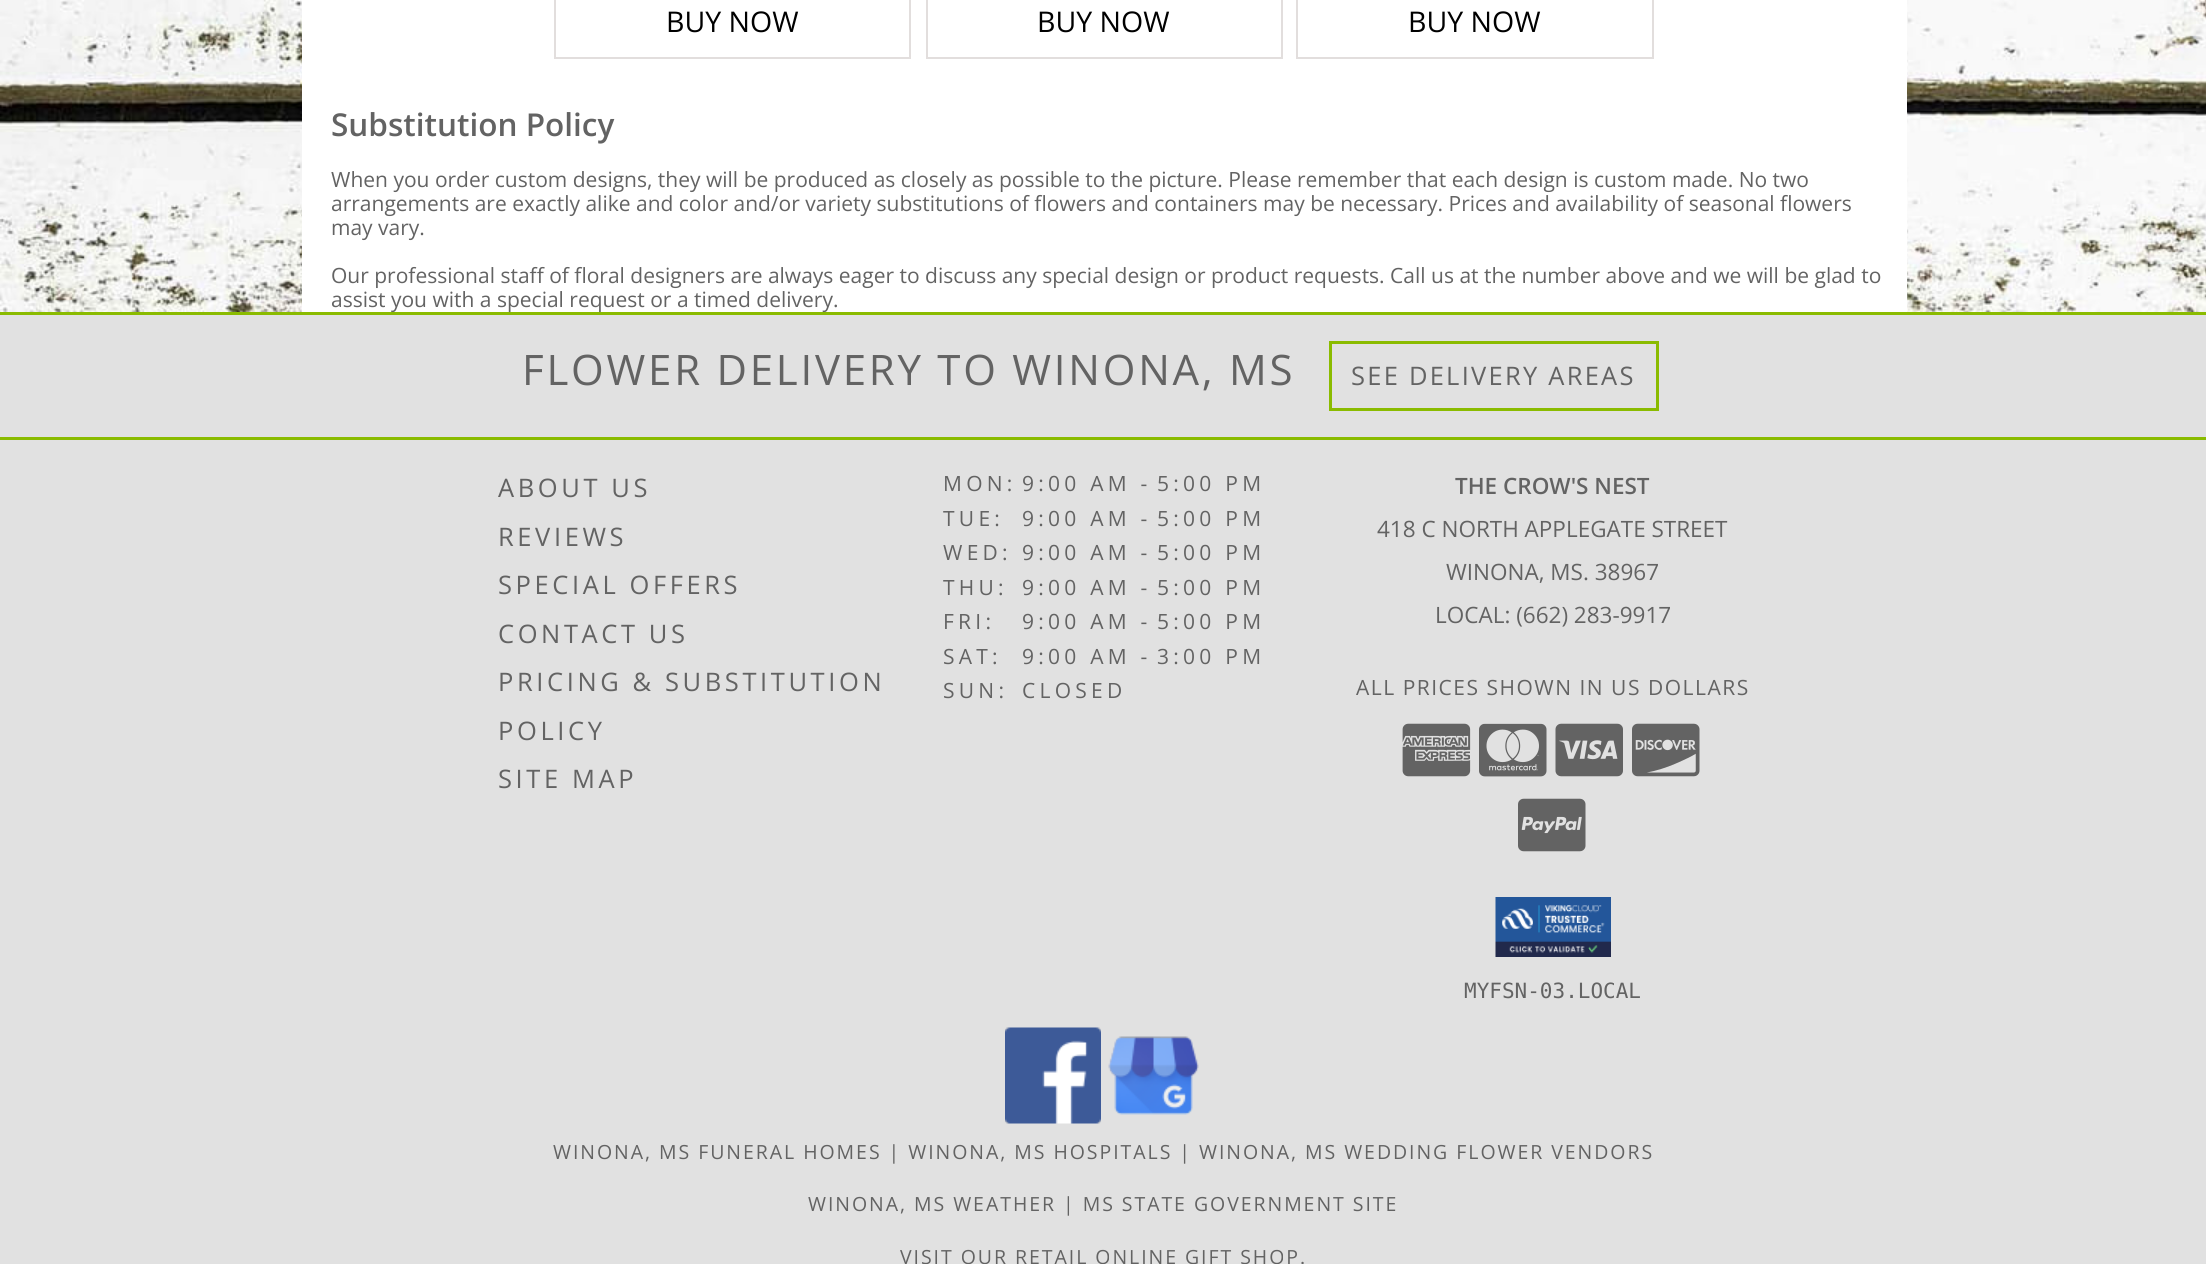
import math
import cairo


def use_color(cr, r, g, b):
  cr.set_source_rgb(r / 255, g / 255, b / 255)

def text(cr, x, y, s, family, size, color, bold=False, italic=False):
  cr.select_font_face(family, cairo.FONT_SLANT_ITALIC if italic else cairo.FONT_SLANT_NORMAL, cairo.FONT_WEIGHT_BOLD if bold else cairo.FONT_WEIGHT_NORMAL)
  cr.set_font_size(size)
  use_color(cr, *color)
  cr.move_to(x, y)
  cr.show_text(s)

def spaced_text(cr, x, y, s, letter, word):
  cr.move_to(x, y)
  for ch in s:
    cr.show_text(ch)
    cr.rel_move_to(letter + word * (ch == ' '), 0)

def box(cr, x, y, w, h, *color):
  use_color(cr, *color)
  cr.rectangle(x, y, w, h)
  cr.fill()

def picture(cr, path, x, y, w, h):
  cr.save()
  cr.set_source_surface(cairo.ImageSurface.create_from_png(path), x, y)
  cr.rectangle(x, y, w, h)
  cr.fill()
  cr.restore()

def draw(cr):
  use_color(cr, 255, 255, 255)
  cr.paint()
  picture(cr, "img_01.png", 0, 0, 2206, 312)
  box(cr, 302, 0, 1605, 312, 255, 255, 255)
  box(cr, 909, 0, 2, 59, 226, 222, 221)
  box(cr, 554, 57, 357, 2, 226, 222, 221)
  box(cr, 554, 0, 2, 59, 226, 222, 221)
  box(cr, 1281, 0, 2, 59, 226, 222, 221)
  box(cr, 926, 57, 357, 2, 226, 222, 221)
  box(cr, 926, 0, 2, 59, 226, 222, 221)
  box(cr, 1652, 0, 2, 59, 226, 222, 221)
  box(cr, 1296, 57, 357, 2, 226, 222, 221)
  box(cr, 1296, 0, 2, 59, 226, 222, 221)
  box(cr, 0, 315, 2206, 122, 225, 225, 225)
  box(cr, 0, 312, 2206, 3, 138, 187, 0)
  box(cr, 0, 437, 2206, 3, 138, 187, 0)
  cr.rectangle(1330.5, 342.5, 327, 67)
  cr.set_line_width(3)
  cr.stroke()
  box(cr, 0, 440, 2206, 824, 225, 225, 225)
  picture(cr, "img_02.png", 1402, 723, 69, 54)
  picture(cr, "img_03.png", 1479, 723, 68, 54)
  picture(cr, "img_04.png", 1555, 723, 68, 54)
  picture(cr, "img_05.png", 1632, 723, 68, 54)
  picture(cr, "img_06.png", 1518, 798, 68, 54)
  picture(cr, "img_07.png", 1495, 897, 116, 60)
  picture(cr, "img_08.png", 1005, 1027, 96, 97)
  picture(cr, "img_09.png", 1108, 1036, 91, 79)
  text(cr, 666, 32, "BUY NOW", "Open Sans", 28.5, (0, 0, 0))
  text(cr, 1037, 32, "BUY NOW", "Open Sans", 28.5, (0, 0, 0))
  text(cr, 1408, 32, "BUY NOW", "Open Sans", 28.5, (0, 0, 0))
  text(cr, 331, 136, "Substitution Policy", "Open Sans SemiBold", 31.5, (99, 99, 99))
  text(cr, 331, 187, "When you order custom designs, they will be produced as closely as possible to the picture. Please remember that each design is custom made. No two", "Open Sans", 21, (99, 99, 99))
  text(cr, 331, 211, "arrangements are exactly alike and color and/or variety substitutions of flowers and containers may be necessary. Prices and availability of seasonal flowers", "Open Sans", 21, (99, 99, 99))
  text(cr, 331, 235, "may vary.", "Open Sans", 21, (99, 99, 99))
  text(cr, 331, 283, "Our professional staff of floral designers are always eager to discuss any special design or product requests. Call us at the number above and we will be glad to", "Open Sans", 21, (99, 99, 99))
  text(cr, 331, 307, "assist you with a special request or a timed delivery.", "Open Sans", 21, (99, 99, 99))
  cr.set_font_size(42)
  spaced_text(cr, 522, 385, "FLOWER DELIVERY TO WINONA, MS", 2.75, 0)
  cr.set_font_size(25.5)
  spaced_text(cr, 1351, 385, "SEE DELIVERY AREAS", 2.25, 0)
  spaced_text(cr, 498, 497, "ABOUT US", 3.6, 0)
  spaced_text(cr, 498, 546, "REVIEWS", 3.6, 0)
  spaced_text(cr, 498, 594, "SPECIAL OFFERS", 3.6, 0)
  spaced_text(cr, 498, 643, "CONTACT US", 3.6, 0)
  spaced_text(cr, 498, 691, "PRICING & SUBSTITUTION", 3.6, 0)
  spaced_text(cr, 498, 740, "POLICY", 3.6, 0)
  spaced_text(cr, 498, 788, "SITE MAP", 3.6, 0)
  cr.set_font_size(21)
  spaced_text(cr, 943, 491, "MON:", 4.25, 0)
  spaced_text(cr, 1022, 491, "9:00 AM -", 4.25, 0)
  spaced_text(cr, 1157, 491, "5:00 PM", 4.25, 0)
  spaced_text(cr, 943, 526, "TUE:", 4.25, 0)
  spaced_text(cr, 1022, 526, "9:00 AM -", 4.25, 0)
  spaced_text(cr, 1157, 526, "5:00 PM", 4.25, 0)
  spaced_text(cr, 943, 560, "WED:", 4.25, 0)
  spaced_text(cr, 1022, 560, "9:00 AM -", 4.25, 0)
  spaced_text(cr, 1157, 560, "5:00 PM", 4.25, 0)
  spaced_text(cr, 943, 595, "THU:", 4.25, 0)
  spaced_text(cr, 1022, 595, "9:00 AM -", 4.25, 0)
  spaced_text(cr, 1157, 595, "5:00 PM", 4.25, 0)
  spaced_text(cr, 943, 629, "FRI:", 4.25, 0)
  spaced_text(cr, 1022, 629, "9:00 AM -", 4.25, 0)
  spaced_text(cr, 1157, 629, "5:00 PM", 4.25, 0)
  spaced_text(cr, 943, 664, "SAT:", 4.25, 0)
  spaced_text(cr, 1022, 664, "9:00 AM -", 4.25, 0)
  spaced_text(cr, 1157, 664, "3:00 PM", 4.25, 0)
  spaced_text(cr, 943, 698, "SUN:", 4.25, 0)
  spaced_text(cr, 1022, 698, "CLOSED", 4.25, 0)
  text(cr, 1455, 494, "THE CROW'S NEST", "Open Sans SemiBold", 22.5, (99, 99, 99))
  text(cr, 1377, 537, "418 C NORTH APPLEGATE STREET", "Open Sans", 22.5, (99, 99, 99))
  text(cr, 1446, 580, "WINONA, MS. 38967", "Open Sans", 22.5, (99, 99, 99))
  text(cr, 1435, 623, "LOCAL: (662) 283-9917", "Open Sans", 22.5, (99, 99, 99))
  cr.set_font_size(21)
  spaced_text(cr, 1356, 695, "ALL PRICES SHOWN IN US DOLLARS", 1.5, 0)
  text(cr, 1464, 998, "MYFSN-03.LOCAL", "DejaVu Sans Mono", 21, (99, 99, 99))
  cr.select_font_face("Open Sans")
  cr.set_font_size(19.5)
  spaced_text(cr, 553, 1159, "WINONA, MS FUNERAL HOMES | WINONA, MS HOSPITALS | WINONA, MS WEDDING FLOWER VENDORS", 1.95, 0)
  spaced_text(cr, 808, 1211, "WINONA, MS WEATHER | MS STATE GOVERNMENT SITE", 1.95, 0)
  spaced_text(cr, 900, 1264, "VISIT OUR RETAIL ONLINE GIFT SHOP.", 1.95, 0)


surface = cairo.ImageSurface(cairo.FORMAT_RGB24, 2206, 1264)
cr = cairo.Context(surface)
options = cairo.FontOptions()
options.set_hint_metrics(cairo.HINT_METRICS_OFF)
options.set_hint_style(cairo.HINT_STYLE_NONE)
cr.set_font_options(options)
cr.set_miter_limit(4)
draw(cr)
surface.write_to_png("out.png")
